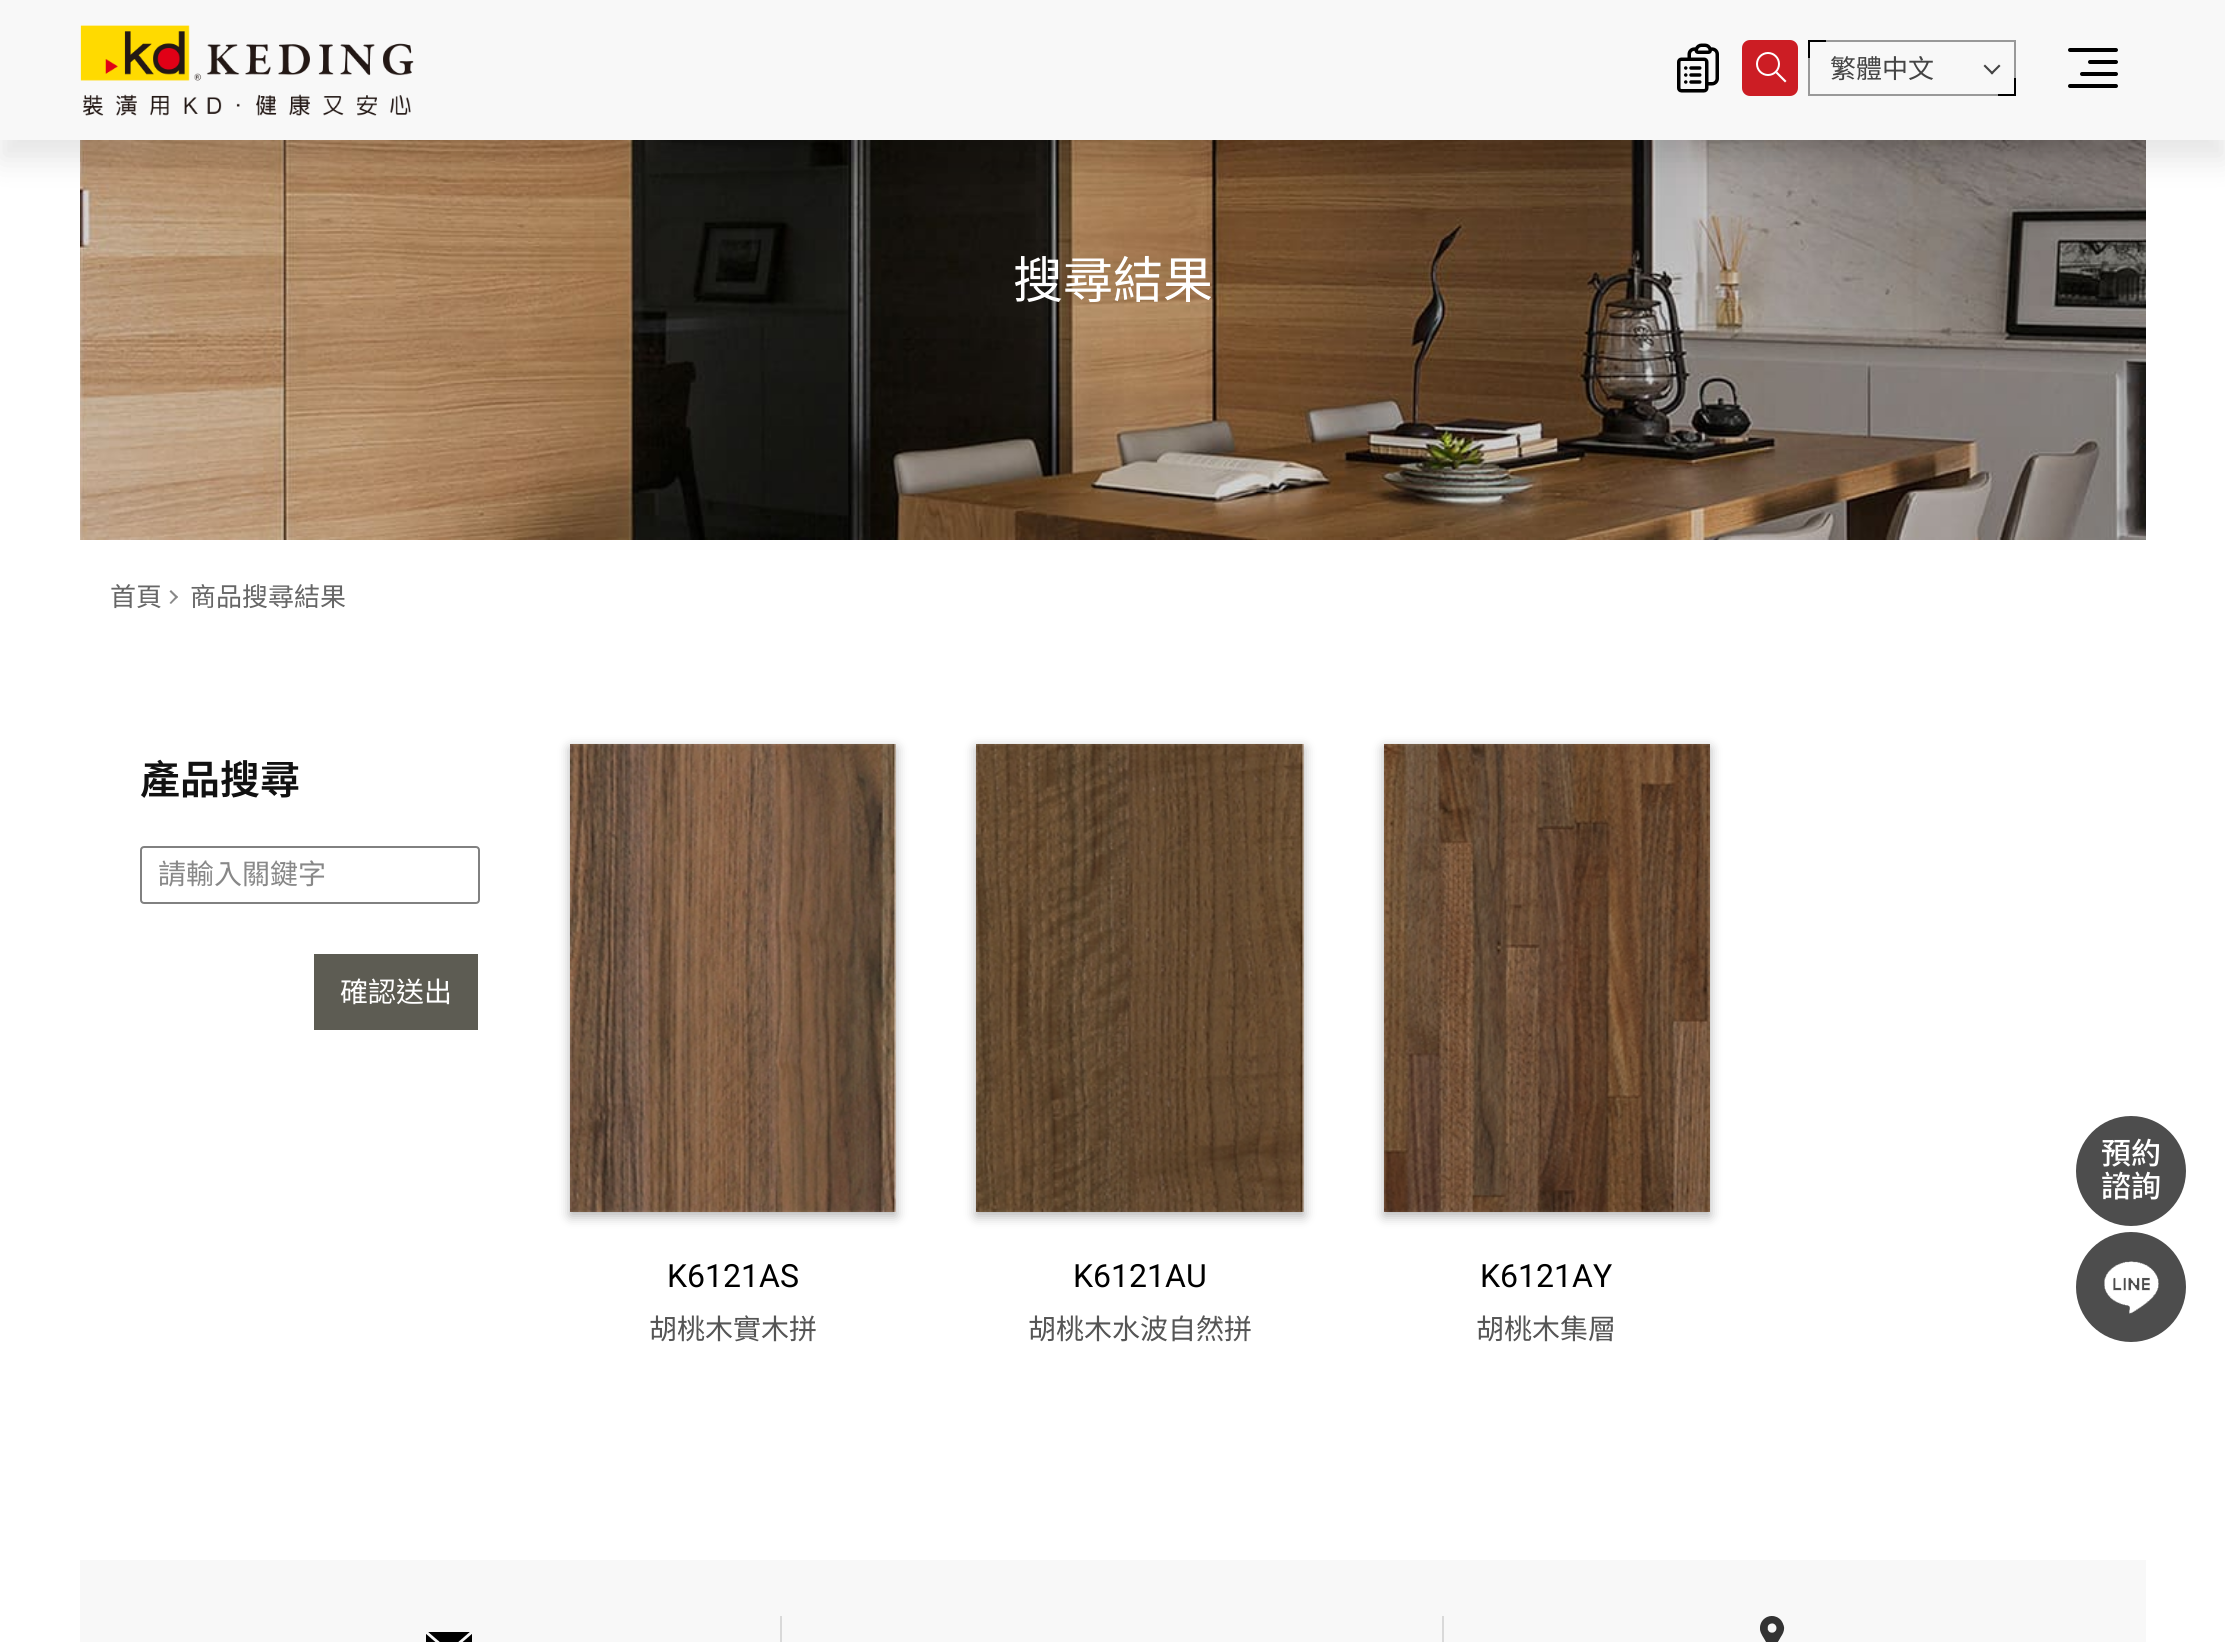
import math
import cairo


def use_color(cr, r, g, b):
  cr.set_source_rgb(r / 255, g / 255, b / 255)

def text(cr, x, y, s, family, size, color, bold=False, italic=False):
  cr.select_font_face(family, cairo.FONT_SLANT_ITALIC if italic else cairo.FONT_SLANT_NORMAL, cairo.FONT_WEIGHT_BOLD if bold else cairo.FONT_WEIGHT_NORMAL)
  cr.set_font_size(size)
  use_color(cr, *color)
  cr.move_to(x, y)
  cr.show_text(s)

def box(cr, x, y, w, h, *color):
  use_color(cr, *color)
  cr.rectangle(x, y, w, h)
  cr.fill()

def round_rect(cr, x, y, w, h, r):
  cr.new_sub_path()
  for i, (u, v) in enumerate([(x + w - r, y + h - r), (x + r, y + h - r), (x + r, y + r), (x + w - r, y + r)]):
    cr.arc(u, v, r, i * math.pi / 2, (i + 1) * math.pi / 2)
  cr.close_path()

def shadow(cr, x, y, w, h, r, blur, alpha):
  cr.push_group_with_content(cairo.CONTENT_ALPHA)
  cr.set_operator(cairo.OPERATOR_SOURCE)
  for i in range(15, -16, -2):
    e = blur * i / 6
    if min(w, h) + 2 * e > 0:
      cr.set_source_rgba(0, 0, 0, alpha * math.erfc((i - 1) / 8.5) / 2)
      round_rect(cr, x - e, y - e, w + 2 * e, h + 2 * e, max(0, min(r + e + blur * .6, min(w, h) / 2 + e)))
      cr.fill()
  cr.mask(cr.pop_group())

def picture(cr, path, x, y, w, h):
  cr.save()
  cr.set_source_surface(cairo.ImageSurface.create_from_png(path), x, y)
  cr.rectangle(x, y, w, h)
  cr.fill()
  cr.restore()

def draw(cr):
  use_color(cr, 255, 255, 255)
  cr.paint()
  picture(cr, "img_03.png", 80, 140, 2066, 400)
  use_color(cr, 0, 0, 0)
  shadow(cr, 0, 20, 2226, 140, 0, 15, 0.1)
  box(cr, 0, 0, 2225, 140, 248, 248, 248)
  picture(cr, "img_01.png", 80, 25, 334, 91)
  picture(cr, "img_02.png", 1677, 43, 42, 50)
  use_color(cr, 204, 29, 36)
  round_rect(cr, 1742, 40, 56, 56, 8)
  cr.fill()
  cr.arc(1768, 64, 11, 0, 2 * math.pi)
  use_color(cr, 255, 255, 255)
  cr.stroke()
  cr.new_path()
  cr.move_to(1777, 71.5)
  cr.line_to(1786.5, 81)
  cr.line_to(1785, 82.5)
  cr.line_to(1775.5, 73)
  cr.close_path()
  cr.fill()
  cr.rectangle(1809, 41, 206, 54)
  use_color(cr, 153, 153, 153)
  cr.stroke()
  box(cr, 1808, 40, 18, 2, 1, 1, 1)
  box(cr, 1808, 40, 2, 18, 1, 1, 1)
  use_color(cr, 68, 68, 68)
  cr.new_path()
  cr.move_to(1999, 64.5)
  cr.line_to(2000.5, 66)
  cr.line_to(1992, 74.5)
  cr.line_to(1990.5, 73)
  cr.close_path()
  cr.fill()
  cr.new_path()
  cr.move_to(1985, 64.5)
  cr.line_to(1993.5, 73)
  cr.line_to(1992, 74.5)
  cr.line_to(1983.5, 66)
  cr.close_path()
  cr.fill()
  box(cr, 2014, 78, 2, 18, 1, 1, 1)
  box(cr, 1998, 94, 18, 2, 1, 1, 1)
  use_color(cr, 0, 0, 0)
  round_rect(cr, 2068, 48, 50, 4, 2)
  cr.fill()
  round_rect(cr, 2088, 60, 30, 4, 2)
  cr.fill()
  round_rect(cr, 2080, 72, 38, 4, 2)
  cr.fill()
  round_rect(cr, 2068, 84, 50, 4, 2)
  cr.fill()
  use_color(cr, 136, 136, 136)
  cr.new_path()
  cr.move_to(169.5, 591.5)
  cr.line_to(171, 590)
  cr.line_to(178, 597)
  cr.line_to(176.5, 598.5)
  cr.close_path()
  cr.fill()
  cr.new_path()
  cr.move_to(169.5, 603)
  cr.line_to(176.5, 595.5)
  cr.line_to(178, 597)
  cr.line_to(171, 604)
  cr.close_path()
  cr.fill()
  round_rect(cr, 141, 847, 338, 56, 3)
  use_color(cr, 129, 129, 129)
  cr.stroke()
  box(cr, 314, 954, 164, 76, 93, 92, 83)
  use_color(cr, 0, 0, 0)
  shadow(cr, 570, 748, 326, 468, 0, 6, 0.3)
  picture(cr, "img_04.png", 570, 744, 326, 468)
  shadow(cr, 976, 748, 328, 468, 0, 6, 0.3)
  picture(cr, "img_05.png", 976, 744, 328, 468)
  shadow(cr, 1384, 748, 326, 468, 0, 6, 0.3)
  picture(cr, "img_06.png", 1384, 744, 326, 468)
  use_color(cr, 77, 77, 77)
  cr.arc(2131, 1171, 55, 0, 2 * math.pi)
  cr.fill()
  cr.arc(2131, 1287, 55, 0, 2 * math.pi)
  cr.fill()
  picture(cr, "img_07.png", 2104, 1261, 55, 53)
  box(cr, 80, 1560, 2066, 82, 248, 248, 248)
  picture(cr, "img_08.png", 426, 1632, 46, 10)
  box(cr, 780, 1616, 2, 26, 217, 217, 217)
  box(cr, 1442, 1616, 2, 26, 217, 217, 217)
  picture(cr, "img_09.png", 1760, 1616, 25, 26)
  text(cr, 1830, 78, "繁體中文", "Noto Sans TC", 26, (68, 68, 68))
  text(cr, 1013, 298, "搜尋結果", "Noto Sans TC", 50, (255, 255, 255))
  text(cr, 110, 606, "首頁", "Noto Sans TC", 26, (102, 102, 102))
  text(cr, 190, 606, "商品搜尋結果", "Noto Sans TC", 26, (102, 102, 102))
  text(cr, 140, 794, "產品搜尋", "Noto Sans TC SemiBold", 40, (17, 17, 17))
  text(cr, 158, 884, "請輸入關鍵字", "Noto Sans TC", 28, (136, 136, 136))
  text(cr, 340, 1002, "確認送出", "Noto Sans TC", 28, (255, 255, 255))
  text(cr, 667, 1287, "K6121AS", "Roboto", 32, (0, 0, 0))
  text(cr, 649, 1339, "胡桃木實木拼", "Noto Sans TC", 28, (85, 85, 85))
  text(cr, 1073, 1287, "K6121AU", "Roboto", 32, (0, 0, 0))
  text(cr, 1028, 1339, "胡桃木水波自然拼", "Noto Sans TC", 28, (85, 85, 85))
  text(cr, 1480, 1287, "K6121AY", "Roboto", 32, (0, 0, 0))
  text(cr, 1476, 1339, "胡桃木集層", "Noto Sans TC", 28, (85, 85, 85))
  text(cr, 2101, 1164, "預約", "Noto Sans TC Medium", 30, (255, 255, 255))
  text(cr, 2101, 1197, "諮詢", "Noto Sans TC Medium", 30, (255, 255, 255))


surface = cairo.ImageSurface(cairo.FORMAT_RGB24, 2225, 1642)
cr = cairo.Context(surface)
options = cairo.FontOptions()
options.set_hint_metrics(cairo.HINT_METRICS_OFF)
options.set_hint_style(cairo.HINT_STYLE_NONE)
cr.set_font_options(options)
cr.set_miter_limit(4)
draw(cr)
surface.write_to_png("out.png")
